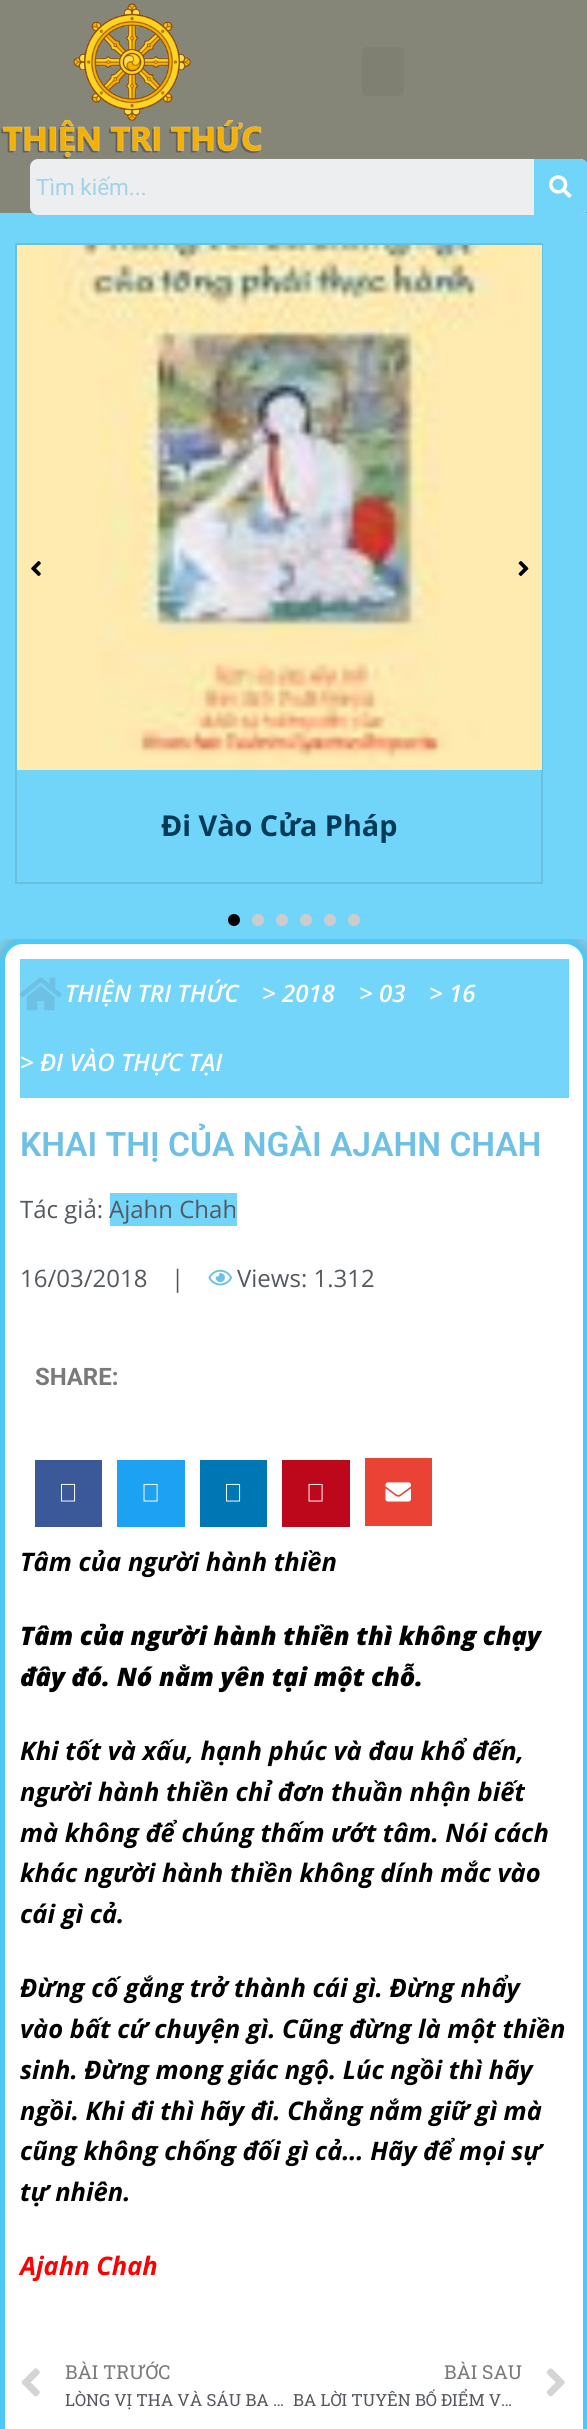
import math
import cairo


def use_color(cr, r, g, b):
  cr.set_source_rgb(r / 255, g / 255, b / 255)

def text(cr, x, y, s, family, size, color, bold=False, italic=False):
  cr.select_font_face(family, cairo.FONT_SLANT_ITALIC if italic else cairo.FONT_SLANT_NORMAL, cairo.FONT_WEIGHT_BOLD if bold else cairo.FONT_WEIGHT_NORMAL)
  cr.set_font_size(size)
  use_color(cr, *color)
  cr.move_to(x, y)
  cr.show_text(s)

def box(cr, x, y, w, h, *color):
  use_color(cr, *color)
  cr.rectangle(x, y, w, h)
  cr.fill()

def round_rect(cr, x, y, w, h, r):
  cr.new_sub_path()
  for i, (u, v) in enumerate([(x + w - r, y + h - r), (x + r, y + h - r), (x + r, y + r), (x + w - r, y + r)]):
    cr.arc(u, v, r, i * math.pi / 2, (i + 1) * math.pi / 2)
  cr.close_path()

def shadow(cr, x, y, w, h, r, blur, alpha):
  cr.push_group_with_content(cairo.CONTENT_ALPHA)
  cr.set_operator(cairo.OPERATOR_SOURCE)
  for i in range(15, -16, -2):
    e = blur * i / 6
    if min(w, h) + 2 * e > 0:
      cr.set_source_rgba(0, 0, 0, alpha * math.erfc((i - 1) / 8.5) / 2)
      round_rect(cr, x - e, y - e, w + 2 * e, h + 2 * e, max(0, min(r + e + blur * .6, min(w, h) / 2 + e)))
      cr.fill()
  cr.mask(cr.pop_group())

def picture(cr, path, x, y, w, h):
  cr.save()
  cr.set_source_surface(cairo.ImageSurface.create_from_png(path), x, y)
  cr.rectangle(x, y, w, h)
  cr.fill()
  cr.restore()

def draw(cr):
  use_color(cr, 113, 213, 249)
  cr.paint()
  box(cr, 0, 0, 587, 213, 134, 134, 120)
  picture(cr, "img_01.png", 1, 3, 261, 156)
  use_color(cr, 127, 127, 114)
  round_rect(cr, 362, 47, 42, 49, 5)
  cr.fill()
  use_color(cr, 236, 238, 239)
  round_rect(cr, 30, 159, 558, 56, 8)
  cr.fill()
  use_color(cr, 113, 213, 249)
  cr.new_path()
  cr.move_to(534, 159)
  cr.line_to(580, 159)
  cr.curve_to(584.5, 159, 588, 162.5, 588, 167)
  cr.line_to(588, 207)
  cr.curve_to(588, 211.5, 584.5, 215, 580, 215)
  cr.line_to(534, 215)
  cr.close_path()
  cr.fill()
  picture(cr, "img_02.png", 549, 175, 23, 23)
  cr.rectangle(16, 244, 526, 639)
  use_color(cr, 102, 192, 224)
  cr.stroke()
  picture(cr, "img_05.png", 17, 245, 525, 525)
  picture(cr, "img_03.png", 31, 561, 10, 15)
  picture(cr, "img_04.png", 518, 561, 11, 15)
  use_color(cr, 0, 0, 0)
  cr.arc(234, 920, 6, 0, 2 * math.pi)
  cr.fill()
  use_color(cr, 204, 204, 204)
  cr.arc(258, 920, 6, 0, 2 * math.pi)
  cr.fill()
  cr.arc(282, 920, 6, 0, 2 * math.pi)
  cr.fill()
  cr.arc(306, 920, 6, 0, 2 * math.pi)
  cr.fill()
  cr.arc(330, 920, 6, 0, 2 * math.pi)
  cr.fill()
  cr.arc(354, 920, 6, 0, 2 * math.pi)
  cr.fill()
  cr.save()
  round_rect(cr, 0, 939, 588, 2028, 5)
  cr.clip()
  use_color(cr, 149, 146, 146)
  shadow(cr, 0, 939, 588, 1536, 23, 7.5, 1)
  cr.restore()
  use_color(cr, 255, 255, 255)
  round_rect(cr, 2.5, 941.5, 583, 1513, 20.5)
  cr.fill_preserve()
  use_color(cr, 79, 200, 243)
  cr.set_line_width(5)
  cr.stroke()
  box(cr, 20, 959, 549, 139, 114, 213, 249)
  picture(cr, "img_06.png", 19, 977, 43, 34)
  box(cr, 110, 1193, 127, 33, 114, 213, 249)
  picture(cr, "img_07.png", 208, 1269, 25, 17)
  box(cr, 35, 1460, 67, 67, 59, 89, 152)
  picture(cr, "img_08.png", 61, 1483, 15, 19)
  box(cr, 117, 1460, 68, 67, 29, 161, 242)
  picture(cr, "img_09.png", 143, 1483, 15, 19)
  box(cr, 200, 1460, 67, 67, 0, 119, 181)
  picture(cr, "img_10.png", 226, 1483, 15, 19)
  box(cr, 282, 1460, 68, 67, 189, 8, 28)
  picture(cr, "img_11.png", 308, 1483, 15, 19)
  box(cr, 365, 1458, 67, 68, 234, 67, 53)
  picture(cr, "img_12.png", 385, 1482, 26, 20)
  picture(cr, "img_13.png", 21, 2368, 19, 29)
  picture(cr, "img_14.png", 546, 2368, 19, 29)
  text(cr, 36, 195, "Tìm kiếm...", "Roboto", 22.5, (160, 211, 232))
  text(cr, 161, 836, "Đi Vào Cửa Pháp", "Open Sans", 28.75, (0, 58, 87), bold=True)
  text(cr, 65, 1002, "THIỆN TRI THỨC", "Open Sans SemiBold", 24, (255, 255, 255), italic=True)
  text(cr, 262, 1002, "> 2018", "Open Sans SemiBold", 24, (255, 255, 255), italic=True)
  text(cr, 359, 1002, "> 03", "Open Sans SemiBold", 24, (255, 255, 255), italic=True)
  text(cr, 429, 1002, "> 16", "Open Sans SemiBold", 24, (255, 255, 255), italic=True)
  text(cr, 20, 1071, "> ĐI VÀO THỰC TẠI", "Open Sans SemiBold", 24, (255, 255, 255), italic=True)
  text(cr, 20, 1156, "KHAI THỊ CỦA NGÀI AJAHN CHAH", "Roboto SemiBold", 33.6, (110, 193, 228))
  text(cr, 20, 1218, "Tác giả:", "Open Sans", 24, (84, 89, 95))
  text(cr, 109, 1218, "Ajahn Chah", "Open Sans", 24, (84, 89, 95))
  text(cr, 20, 1287, "16/03/2018", "Open Sans", 24, (84, 89, 95))
  text(cr, 171, 1287, "|", "Open Sans", 24, (84, 89, 95))
  text(cr, 237, 1287, "Views: 1.312", "Open Sans", 24, (84, 89, 95))
  text(cr, 35, 1385, "SHARE:", "Roboto", 24, (122, 122, 122), bold=True)
  text(cr, 20, 1571, "Tâm của người hành thiền", "Open Sans", 25.5, (0, 0, 0), bold=True, italic=True)
  text(cr, 20, 1645, "Tâm của người hành thiền thì không chạy", "Open Sans ExtraBold", 25.5, (0, 0, 0), italic=True)
  text(cr, 20, 1686, "đây đó. Nó nằm yên tại một chỗ.", "Open Sans ExtraBold", 25.5, (0, 0, 0), italic=True)
  text(cr, 20, 1760, "Khi tốt và xấu, hạnh phúc và đau khổ đến,", "Open Sans", 25.5, (0, 0, 0), bold=True, italic=True)
  text(cr, 20, 1801, "người hành thiền chỉ đơn thuần nhận biết", "Open Sans", 25.5, (0, 0, 0), bold=True, italic=True)
  text(cr, 20, 1842, "mà không để chúng thấm ướt tâm. Nói cách", "Open Sans", 25.5, (0, 0, 0), bold=True, italic=True)
  text(cr, 20, 1882, "khác người hành thiền không dính mắc vào", "Open Sans", 25.5, (0, 0, 0), bold=True, italic=True)
  text(cr, 20, 1923, "cái gì cả.", "Open Sans", 25.5, (0, 0, 0), bold=True, italic=True)
  text(cr, 20, 1997, "Đừng cố gắng trở thành cái gì. Đừng nhẩy", "Open Sans", 25.5, (0, 0, 0), bold=True, italic=True)
  text(cr, 20, 2038, "vào bất cứ chuyện gì. Cũng đừng là một thiền", "Open Sans", 25.5, (0, 0, 0), bold=True, italic=True)
  text(cr, 20, 2079, "sinh. Đừng mong giác ngộ. Lúc ngồi thì hãy", "Open Sans", 25.5, (0, 0, 0), bold=True, italic=True)
  text(cr, 20, 2120, "ngồi. Khi đi thì hãy đi. Chẳng nắm giữ gì mà", "Open Sans", 25.5, (0, 0, 0), bold=True, italic=True)
  text(cr, 20, 2160, "cũng không chống đối gì cả… Hãy để mọi sự", "Open Sans", 25.5, (0, 0, 0), bold=True, italic=True)
  text(cr, 20, 2201, "tự nhiên.", "Open Sans", 25.5, (0, 0, 0), bold=True, italic=True)
  text(cr, 20, 2275, "Ajahn Chah", "Open Sans", 25.5, (255, 0, 0), bold=True, italic=True)
  text(cr, 65, 2379, "BÀI TRƯỚC", "Roboto Slab", 19.25, (122, 122, 122))
  text(cr, 65, 2406, "LÒNG VỊ THA VÀ SÁU BA …", "Roboto Slab", 16.75, (84, 89, 95))
  text(cr, 444, 2379, "BÀI SAU", "Roboto Slab", 19.25, (122, 122, 122))
  text(cr, 293, 2406, "BA LỜI TUYÊN BỐ ĐIỂM V…", "Roboto Slab", 16.75, (84, 89, 95))


surface = cairo.ImageSurface(cairo.FORMAT_RGB24, 587, 2429)
cr = cairo.Context(surface)
options = cairo.FontOptions()
options.set_hint_metrics(cairo.HINT_METRICS_OFF)
options.set_hint_style(cairo.HINT_STYLE_NONE)
cr.set_font_options(options)
cr.set_miter_limit(4)
draw(cr)
surface.write_to_png("out.png")
